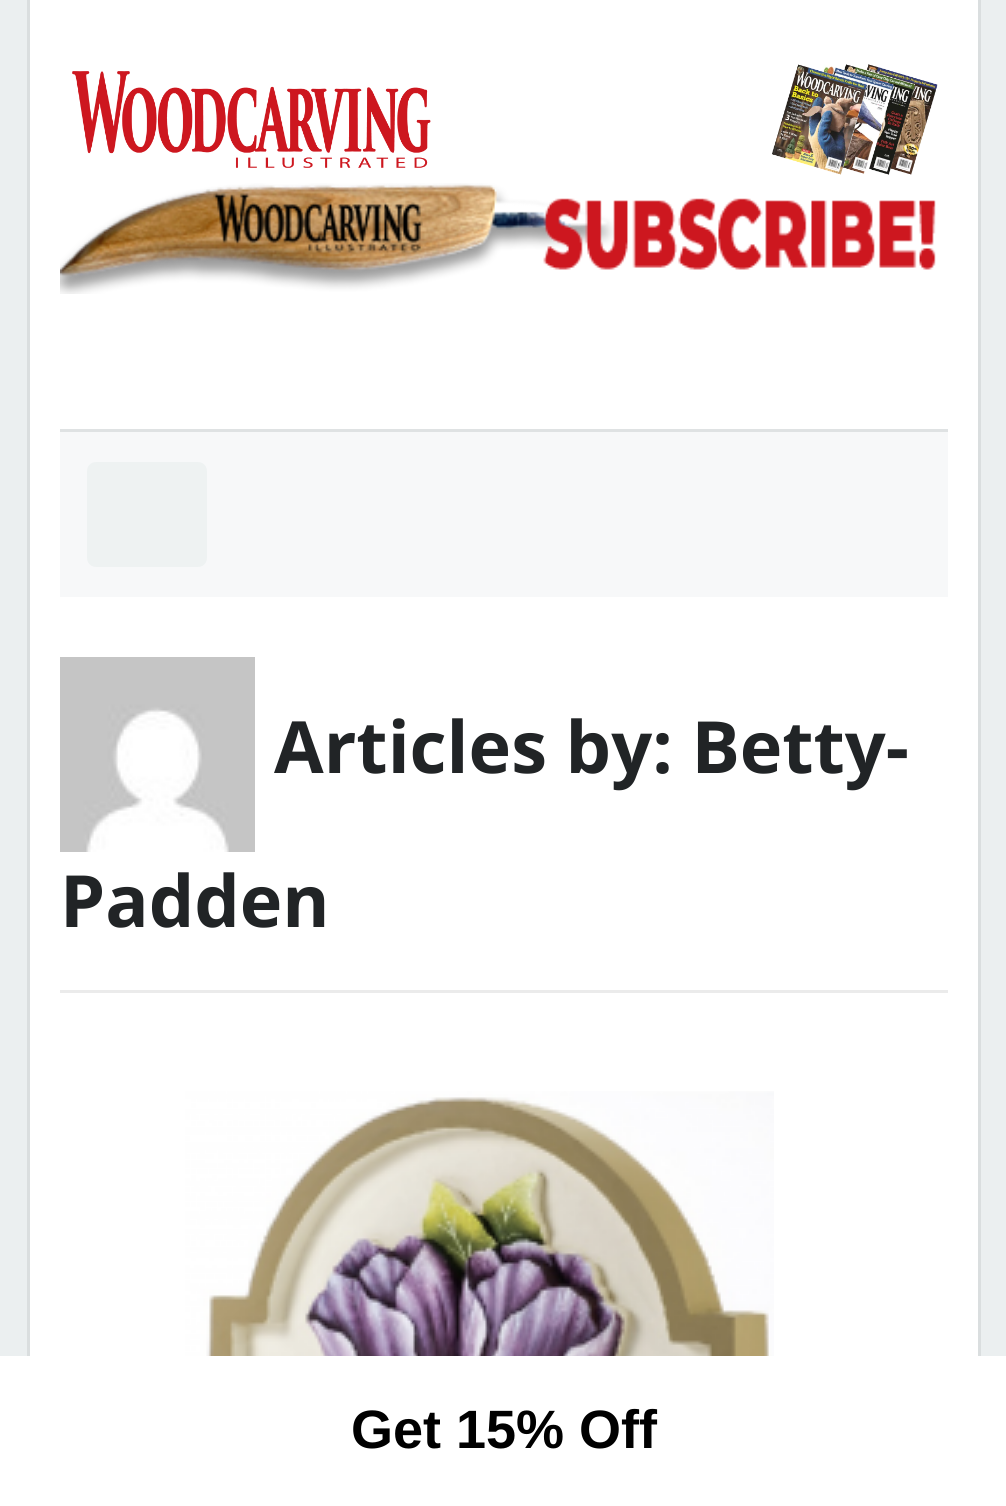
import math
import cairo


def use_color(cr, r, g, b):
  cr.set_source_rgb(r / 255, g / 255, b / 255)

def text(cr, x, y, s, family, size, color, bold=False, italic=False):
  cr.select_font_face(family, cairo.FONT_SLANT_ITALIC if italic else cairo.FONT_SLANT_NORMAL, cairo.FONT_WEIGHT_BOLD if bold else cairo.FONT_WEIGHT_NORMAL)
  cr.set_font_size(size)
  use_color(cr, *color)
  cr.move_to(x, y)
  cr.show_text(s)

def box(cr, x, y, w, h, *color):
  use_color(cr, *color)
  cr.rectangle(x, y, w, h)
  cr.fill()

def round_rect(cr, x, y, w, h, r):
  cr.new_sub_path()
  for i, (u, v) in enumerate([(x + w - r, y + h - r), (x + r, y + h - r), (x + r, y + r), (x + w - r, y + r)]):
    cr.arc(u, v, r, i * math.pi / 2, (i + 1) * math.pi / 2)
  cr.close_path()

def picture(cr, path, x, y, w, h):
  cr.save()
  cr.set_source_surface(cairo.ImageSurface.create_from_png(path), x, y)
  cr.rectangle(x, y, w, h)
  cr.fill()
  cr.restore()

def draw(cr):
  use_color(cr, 235, 239, 240)
  cr.paint()
  box(cr, 30, 0, 948, 1356, 255, 255, 255)
  box(cr, 978, 0, 3, 1356, 218, 222, 223)
  box(cr, 27, 0, 3, 1356, 218, 222, 223)
  picture(cr, "img_01.png", 72, 64, 866, 111)
  picture(cr, "img_02.png", 60, 183, 876, 111)
  box(cr, 60, 432, 888, 165, 247, 248, 249)
  box(cr, 60, 429, 888, 3, 223, 226, 227)
  use_color(cr, 238, 242, 242)
  round_rect(cr, 87, 462, 120, 105, 9)
  cr.fill()
  box(cr, 60, 990, 888, 3, 235, 235, 235)
  picture(cr, "img_03.png", 60, 657, 195, 195)
  picture(cr, "img_04.png", 185, 1091, 589, 265)
  box(cr, 0, 1356, 1006, 150, 255, 255, 255)
  text(cr, 274, 773, "Articles by: Betty-", "Open Sans", 72, (33, 36, 38), bold=True)
  text(cr, 60, 927, "Padden", "Open Sans", 72, (33, 36, 38), bold=True)
  text(cr, 351, 1448, "Get 15% Off", "Liberation Sans", 54, (0, 0, 0), bold=True)


surface = cairo.ImageSurface(cairo.FORMAT_RGB24, 1006, 1506)
cr = cairo.Context(surface)
options = cairo.FontOptions()
options.set_hint_metrics(cairo.HINT_METRICS_OFF)
options.set_hint_style(cairo.HINT_STYLE_NONE)
cr.set_font_options(options)
cr.set_miter_limit(4)
draw(cr)
surface.write_to_png("out.png")
